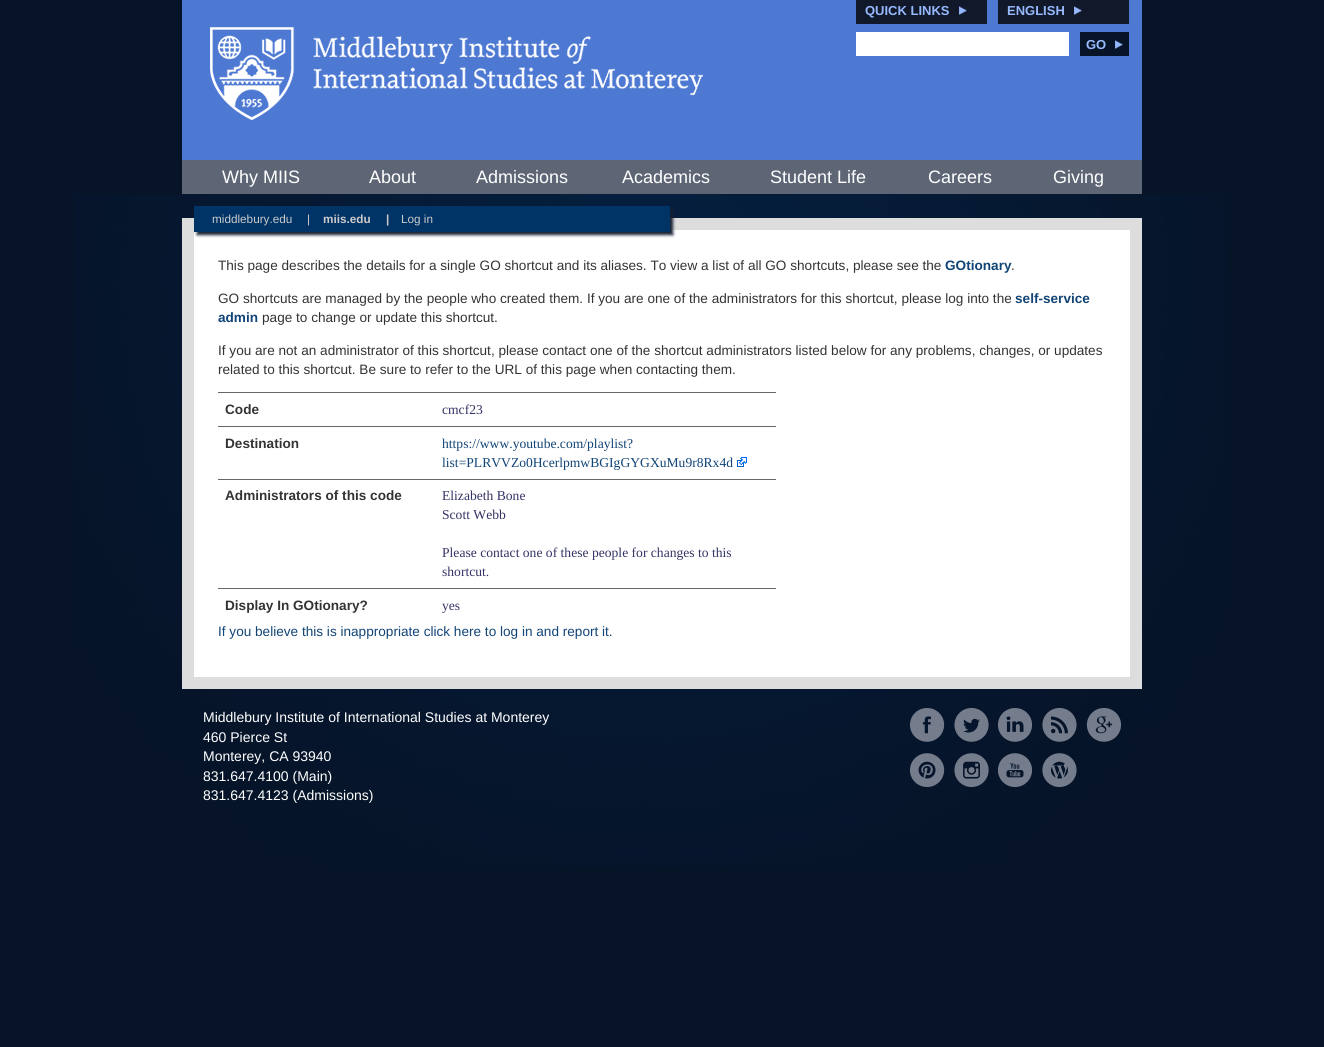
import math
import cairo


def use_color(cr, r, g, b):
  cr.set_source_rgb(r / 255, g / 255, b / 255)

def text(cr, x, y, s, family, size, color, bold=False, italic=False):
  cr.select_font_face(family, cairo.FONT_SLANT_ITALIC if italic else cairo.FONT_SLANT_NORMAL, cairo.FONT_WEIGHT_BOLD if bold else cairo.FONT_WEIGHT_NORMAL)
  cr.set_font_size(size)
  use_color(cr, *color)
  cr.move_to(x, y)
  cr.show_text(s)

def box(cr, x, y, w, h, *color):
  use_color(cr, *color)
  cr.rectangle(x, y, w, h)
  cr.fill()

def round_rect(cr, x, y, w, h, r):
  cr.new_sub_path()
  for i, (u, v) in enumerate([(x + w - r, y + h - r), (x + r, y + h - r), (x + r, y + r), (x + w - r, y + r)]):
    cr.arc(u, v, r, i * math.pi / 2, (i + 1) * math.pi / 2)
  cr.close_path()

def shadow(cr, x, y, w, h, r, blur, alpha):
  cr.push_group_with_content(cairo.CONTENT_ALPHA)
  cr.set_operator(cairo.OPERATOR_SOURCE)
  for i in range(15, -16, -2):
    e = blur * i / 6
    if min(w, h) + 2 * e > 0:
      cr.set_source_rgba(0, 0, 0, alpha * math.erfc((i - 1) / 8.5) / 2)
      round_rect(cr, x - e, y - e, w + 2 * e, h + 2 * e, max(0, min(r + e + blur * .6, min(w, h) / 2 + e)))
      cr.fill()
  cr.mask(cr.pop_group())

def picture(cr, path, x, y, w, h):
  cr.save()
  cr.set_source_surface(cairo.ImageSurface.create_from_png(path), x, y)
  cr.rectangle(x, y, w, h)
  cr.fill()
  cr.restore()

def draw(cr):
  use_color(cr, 7, 20, 39)
  cr.paint()
  picture(cr, "img_01.png", 74, 194, 1152, 672)
  box(cr, 182, 0, 960, 160, 78, 121, 211)
  box(cr, 856, 0, 131, 24, 16, 24, 42)
  picture(cr, "img_02.png", 959, 6, 8, 9)
  box(cr, 998, 0, 131, 24, 16, 24, 42)
  picture(cr, "img_02.png", 1074, 6, 8, 9)
  picture(cr, "img_03.png", 210, 27, 493, 93)
  box(cr, 856, 32, 213, 24, 255, 255, 255)
  box(cr, 1080, 32, 49, 24, 7, 20, 39)
  picture(cr, "img_04.png", 1115, 40, 8, 9)
  box(cr, 182, 160, 960, 34, 94, 102, 118)
  use_color(cr, 255, 255, 255)
  cr.rectangle(188, 224, 948, 459)
  cr.fill_preserve()
  use_color(cr, 221, 221, 221)
  cr.set_line_width(12)
  cr.stroke()
  use_color(cr, 19, 30, 48)
  shadow(cr, 197, 209, 476, 26, 0, 1.5, 1)
  box(cr, 194, 206, 476, 26, 0, 51, 102)
  box(cr, 218, 392, 558, 1, 102, 102, 102)
  box(cr, 218, 426, 558, 1, 102, 102, 102)
  picture(cr, "img_05.png", 737, 457, 10, 10)
  box(cr, 218, 479, 558, 1, 102, 102, 102)
  box(cr, 218, 588, 558, 1, 102, 102, 102)
  picture(cr, "img_06.png", 910, 708, 35, 34)
  picture(cr, "img_07.png", 954, 708, 35, 34)
  picture(cr, "img_08.png", 998, 708, 35, 34)
  picture(cr, "img_09.png", 1042, 708, 35, 34)
  picture(cr, "img_10.png", 1086, 708, 35, 34)
  picture(cr, "img_11.png", 910, 753, 35, 34)
  picture(cr, "img_12.png", 954, 753, 35, 34)
  picture(cr, "img_13.png", 998, 753, 35, 34)
  picture(cr, "img_14.png", 1042, 753, 35, 34)
  text(cr, 865, 15, "QUICK LINKS", "Liberation Sans", 13, (151, 185, 254), bold=True)
  text(cr, 1007, 15, "ENGLISH", "Liberation Sans", 13, (151, 185, 254), bold=True)
  text(cr, 1086, 49, "GO", "Liberation Sans", 13, (151, 185, 254), bold=True)
  text(cr, 222, 183, "Why MIIS", "Liberation Sans", 18, (255, 255, 255))
  text(cr, 369, 183, "About", "Liberation Sans", 18, (255, 255, 255))
  text(cr, 476, 183, "Admissions", "Liberation Sans", 18, (255, 255, 255))
  text(cr, 622, 183, "Academics", "Liberation Sans", 18, (255, 255, 255))
  text(cr, 770, 183, "Student Life", "Liberation Sans", 18, (255, 255, 255))
  text(cr, 928, 183, "Careers", "Liberation Sans", 18, (255, 255, 255))
  text(cr, 1053, 183, "Giving", "Liberation Sans", 18, (255, 255, 255))
  text(cr, 212, 223, "middlebury.edu", "Liberation Sans", 11.75, (204, 204, 204))
  text(cr, 307, 223, "|", "Liberation Sans", 11.75, (204, 204, 204))
  text(cr, 323, 223, "miis.edu", "Liberation Sans", 11.75, (204, 204, 204), bold=True)
  text(cr, 386, 223, "|", "Liberation Sans", 11.75, (204, 204, 204), bold=True)
  text(cr, 401, 223, "Log in", "Liberation Sans", 11.75, (204, 204, 204))
  text(cr, 218, 270, "This page describes the details for a single GO shortcut and its aliases. To view a list of all GO shortcuts, please see the", "Liberation Sans", 13.6, (51, 51, 51))
  text(cr, 945, 270, "GOtionary", "Liberation Sans", 13.6, (17, 68, 119), bold=True)
  text(cr, 1011, 270, ".", "Liberation Sans", 13.6, (51, 51, 51))
  text(cr, 218, 303, "GO shortcuts are managed by the people who created them. If you are one of the administrators for this shortcut, please log into the", "Liberation Sans", 13.6, (51, 51, 51))
  text(cr, 1015, 303, "self-service", "Liberation Sans", 13.6, (17, 68, 119), bold=True)
  text(cr, 218, 322, "admin", "Liberation Sans", 13.6, (17, 68, 119), bold=True)
  text(cr, 262, 322, "page to change or update this shortcut.", "Liberation Sans", 13.6, (51, 51, 51))
  text(cr, 218, 355, "If you are not an administrator of this shortcut, please contact one of the shortcut administrators listed below for any problems, changes, or updates", "Liberation Sans", 13.6, (51, 51, 51))
  text(cr, 218, 374, "related to this shortcut. Be sure to refer to the URL of this page when contacting them.", "Liberation Sans", 13.6, (51, 51, 51))
  text(cr, 225, 414, "Code", "Liberation Sans", 13.6, (51, 51, 51), bold=True)
  text(cr, 442, 414, "cmcf23", "Liberation Serif", 13.6, (51, 51, 102))
  text(cr, 225, 448, "Destination", "Liberation Sans", 13.6, (51, 51, 51), bold=True)
  text(cr, 442, 448, "https://www.youtube.com/playlist?", "Liberation Serif", 13.6, (17, 68, 119))
  text(cr, 442, 467, "list=PLRVVZo0HcerlpmwBGIgGYGXuMu9r8Rx4d", "Liberation Serif", 13.6, (17, 68, 119))
  text(cr, 225, 500, "Administrators of this code", "Liberation Sans", 13.6, (51, 51, 51), bold=True)
  text(cr, 442, 500, "Elizabeth Bone", "Liberation Serif", 13.6, (51, 51, 102))
  text(cr, 442, 519, "Scott Webb", "Liberation Serif", 13.6, (51, 51, 102))
  text(cr, 442, 557, "Please contact one of these people for changes to this", "Liberation Serif", 13.6, (51, 51, 102))
  text(cr, 442, 576, "shortcut.", "Liberation Serif", 13.6, (51, 51, 102))
  text(cr, 225, 610, "Display In GOtionary?", "Liberation Sans", 13.6, (51, 51, 51), bold=True)
  text(cr, 442, 610, "yes", "Liberation Serif", 13.6, (51, 51, 102))
  text(cr, 218, 636, "If you believe this is inappropriate click here to log in and report it.", "Liberation Sans", 13.6, (17, 68, 119))
  text(cr, 203, 722, "Middlebury Institute of International Studies at Monterey", "Liberation Sans", 14, (255, 255, 255))
  text(cr, 203, 742, "460 Pierce St", "Liberation Sans", 14, (255, 255, 255))
  text(cr, 203, 761, "Monterey, CA 93940", "Liberation Sans", 14, (255, 255, 255))
  text(cr, 203, 781, "831.647.4100 (Main)", "Liberation Sans", 14, (255, 255, 255))
  text(cr, 203, 800, "831.647.4123 (Admissions)", "Liberation Sans", 14, (255, 255, 255))


surface = cairo.ImageSurface(cairo.FORMAT_RGB24, 1324, 1047)
cr = cairo.Context(surface)
options = cairo.FontOptions()
options.set_hint_metrics(cairo.HINT_METRICS_OFF)
options.set_hint_style(cairo.HINT_STYLE_NONE)
cr.set_font_options(options)
cr.set_miter_limit(4)
draw(cr)
surface.write_to_png("out.png")
